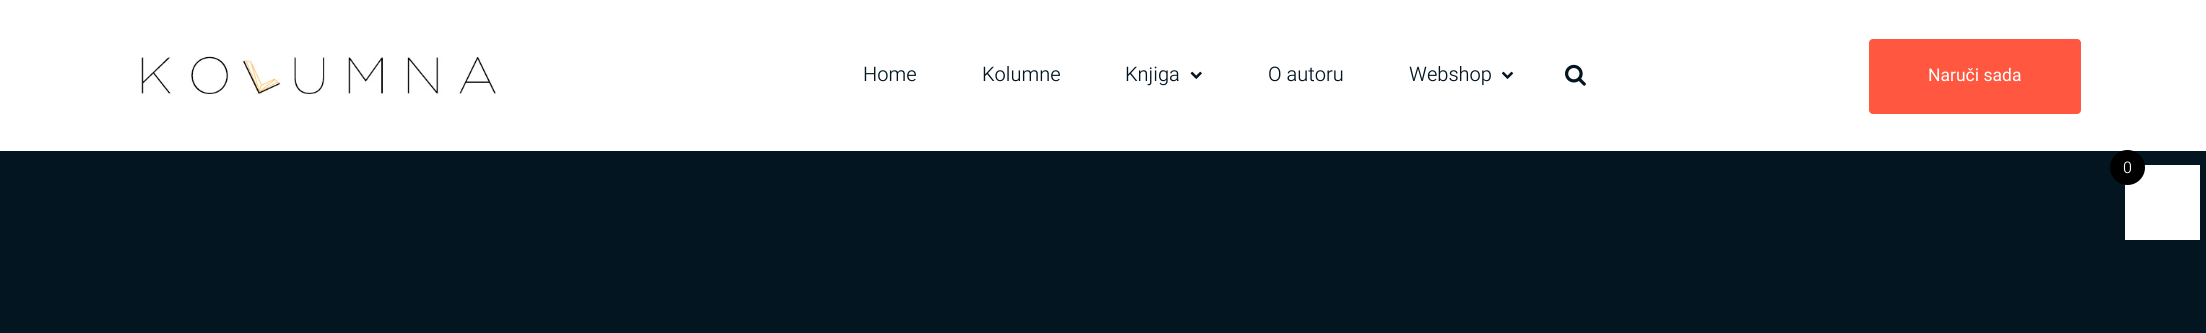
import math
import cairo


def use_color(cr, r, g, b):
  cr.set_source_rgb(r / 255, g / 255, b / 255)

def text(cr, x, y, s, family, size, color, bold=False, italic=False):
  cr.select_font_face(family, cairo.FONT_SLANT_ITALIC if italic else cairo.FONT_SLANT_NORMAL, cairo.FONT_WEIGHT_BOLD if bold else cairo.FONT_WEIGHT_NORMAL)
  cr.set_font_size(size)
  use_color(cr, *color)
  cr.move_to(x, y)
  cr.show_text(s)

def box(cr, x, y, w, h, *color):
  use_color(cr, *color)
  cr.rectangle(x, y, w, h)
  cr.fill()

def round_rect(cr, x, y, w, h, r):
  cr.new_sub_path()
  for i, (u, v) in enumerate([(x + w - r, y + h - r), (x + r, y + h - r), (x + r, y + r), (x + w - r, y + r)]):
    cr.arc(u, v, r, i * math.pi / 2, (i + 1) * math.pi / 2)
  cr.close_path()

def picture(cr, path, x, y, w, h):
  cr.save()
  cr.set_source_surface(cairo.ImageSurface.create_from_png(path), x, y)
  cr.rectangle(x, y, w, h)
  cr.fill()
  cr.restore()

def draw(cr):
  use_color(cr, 255, 255, 255)
  cr.paint()
  picture(cr, "img_01.png", 141, 56, 355, 39)
  picture(cr, "img_02.png", 1190, 71, 12, 8)
  picture(cr, "img_03.png", 1501, 71, 13, 8)
  picture(cr, "img_04.png", 1565, 64, 21, 22)
  use_color(cr, 255, 87, 64)
  round_rect(cr, 1869.5, 39.5, 211, 74, 3.5)
  cr.fill_preserve()
  cr.set_line_width(1)
  cr.stroke()
  box(cr, 0, 151, 2206, 182, 3, 21, 33)
  box(cr, 2125, 165, 75, 75, 255, 255, 255)
  use_color(cr, 0, 0, 0)
  cr.arc(2127.5, 167.5, 17.5, 0, 2 * math.pi)
  cr.fill()
  text(cr, 863, 81, "Home", "Heebo Light", 20, (3, 21, 33))
  text(cr, 982, 81, "Kolumne", "Heebo Light", 20, (3, 21, 33))
  text(cr, 1125, 81, "Knjiga", "Heebo Light", 20, (3, 21, 33))
  text(cr, 1268, 81, "O autoru", "Heebo Light", 20, (3, 21, 33))
  text(cr, 1409, 81, "Webshop", "Heebo Light", 20, (3, 21, 33))
  text(cr, 1928, 81, "Naruči sada", "Heebo", 17.5, (255, 255, 255))
  text(cr, 2123, 173, "0", "Heebo Light", 16, (255, 255, 255))


surface = cairo.ImageSurface(cairo.FORMAT_RGB24, 2206, 333)
cr = cairo.Context(surface)
options = cairo.FontOptions()
options.set_hint_metrics(cairo.HINT_METRICS_OFF)
options.set_hint_style(cairo.HINT_STYLE_NONE)
cr.set_font_options(options)
cr.set_miter_limit(4)
draw(cr)
surface.write_to_png("out.png")
